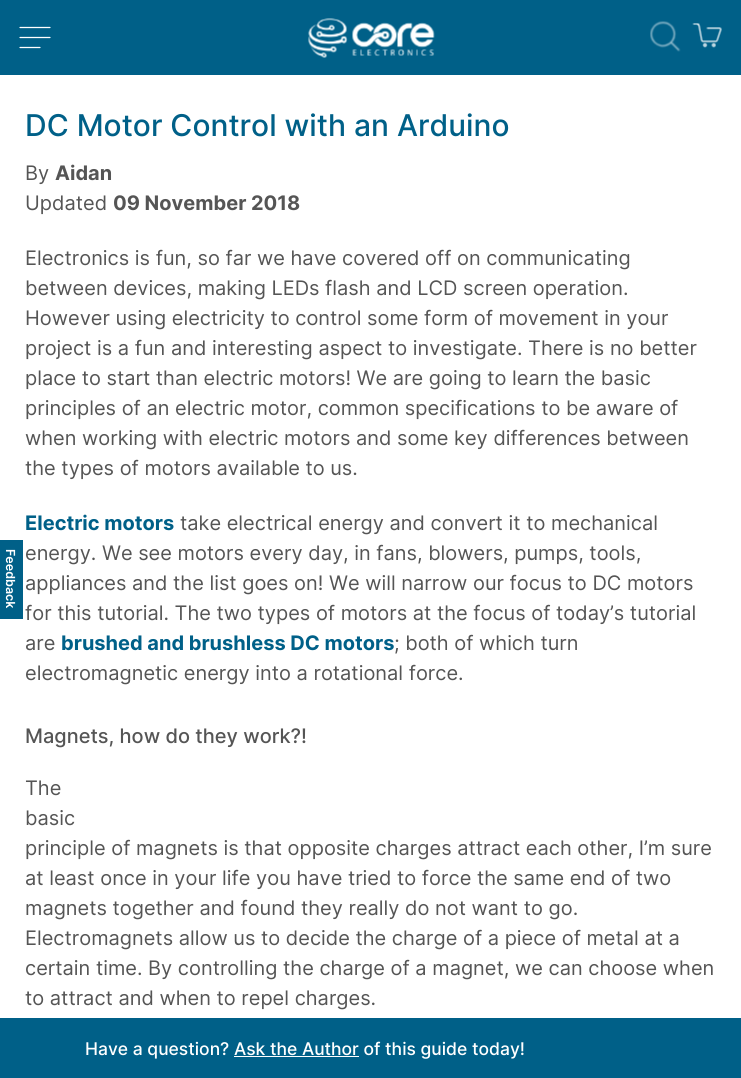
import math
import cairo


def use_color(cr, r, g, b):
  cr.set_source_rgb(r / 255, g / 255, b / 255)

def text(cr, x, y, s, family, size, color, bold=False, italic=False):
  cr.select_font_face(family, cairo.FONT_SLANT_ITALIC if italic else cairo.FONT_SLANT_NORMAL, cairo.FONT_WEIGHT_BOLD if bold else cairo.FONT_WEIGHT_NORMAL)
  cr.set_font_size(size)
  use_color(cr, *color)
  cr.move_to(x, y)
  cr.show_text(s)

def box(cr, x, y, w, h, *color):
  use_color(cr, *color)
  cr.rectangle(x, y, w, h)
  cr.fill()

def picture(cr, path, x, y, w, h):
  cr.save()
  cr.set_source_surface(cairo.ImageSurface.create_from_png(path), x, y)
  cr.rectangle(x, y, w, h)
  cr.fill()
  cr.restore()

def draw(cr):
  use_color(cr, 255, 255, 255)
  cr.paint()
  box(cr, 0, 0, 741, 75, 0, 96, 136)
  picture(cr, "img_01.png", 692, 23, 30, 25)
  cr.new_path()
  cr.move_to(20, 27.5)
  cr.line_to(50, 27.5)
  cr.move_to(20, 37.5)
  cr.line_to(50, 37.5)
  cr.move_to(20, 47.5)
  cr.line_to(40, 47.5)
  use_color(cr, 255, 255, 255)
  cr.set_line_width(1.2)
  cr.set_line_cap(cairo.LINE_CAP_ROUND)
  cr.stroke()
  picture(cr, "img_02.png", 308, 18, 127, 40)
  picture(cr, "img_03.png", 650, 21, 31, 31)
  box(cr, 0, 540, 23, 79, 0, 96, 136)
  box(cr, 0, 1018, 741, 60, 0, 96, 136)
  box(cr, 234, 1056, 125, 1, 255, 255, 255)
  cr.save()
  cr.translate(6, 549)
  cr.rotate(90 * math.pi / 180)
  text(cr, 0, 0, "Feedback", "Inter SemiBold", 12.5, (255, 255, 255))
  cr.restore()
  text(cr, 25, 136, "DC Motor Control with an Arduino", "Inter Medium", 30, (0, 96, 136))
  text(cr, 25, 180, "By", "Inter", 20, (85, 85, 85))
  text(cr, 55, 180, "Aidan", "Inter", 20, (85, 85, 85), bold=True)
  text(cr, 25, 210, "Updated", "Inter", 20, (85, 85, 85))
  text(cr, 113, 210, "09 November 2018", "Inter", 20, (85, 85, 85), bold=True)
  text(cr, 25, 265, "Electronics is fun, so far we have covered off on communicating", "Inter", 20, (85, 85, 85))
  text(cr, 25, 295, "between devices, making LEDs flash and LCD screen operation.", "Inter", 20, (85, 85, 85))
  text(cr, 25, 325, "However using electricity to control some form of movement in your", "Inter", 20, (85, 85, 85))
  text(cr, 25, 355, "project is a fun and interesting aspect to investigate. There is no better", "Inter", 20, (85, 85, 85))
  text(cr, 25, 385, "place to start than electric motors! We are going to learn the basic", "Inter", 20, (85, 85, 85))
  text(cr, 25, 415, "principles of an electric motor, common specifications to be aware of", "Inter", 20, (85, 85, 85))
  text(cr, 25, 445, "when working with electric motors and some key differences between", "Inter", 20, (85, 85, 85))
  text(cr, 25, 475, "the types of motors available to us.", "Inter", 20, (85, 85, 85))
  text(cr, 25, 530, "Electric motors", "Inter", 20, (0, 96, 136), bold=True)
  text(cr, 180, 530, "take electrical energy and convert it to mechanical", "Inter", 20, (85, 85, 85))
  text(cr, 25, 560, "energy. We see motors every day, in fans, blowers, pumps, tools,", "Inter", 20, (85, 85, 85))
  text(cr, 25, 590, "appliances and the list goes on! We will narrow our focus to DC motors", "Inter", 20, (85, 85, 85))
  text(cr, 25, 620, "for this tutorial. The two types of motors at the focus of today’s tutorial", "Inter", 20, (85, 85, 85))
  text(cr, 25, 650, "are", "Inter", 20, (85, 85, 85))
  text(cr, 61, 650, "brushed and brushless DC motors", "Inter", 20, (0, 96, 136), bold=True)
  text(cr, 394, 650, "; both of which turn", "Inter", 20, (85, 85, 85))
  text(cr, 25, 680, "electromagnetic energy into a rotational force.", "Inter", 20, (85, 85, 85))
  text(cr, 25, 743, "Magnets, how do they work?!", "Inter Medium", 20, (85, 85, 85))
  text(cr, 25, 795, "The", "Inter", 20, (85, 85, 85))
  text(cr, 25, 825, "basic", "Inter", 20, (85, 85, 85))
  text(cr, 25, 855, "principle of magnets is that opposite charges attract each other, I’m sure", "Inter", 20, (85, 85, 85))
  text(cr, 25, 885, "at least once in your life you have tried to force the same end of two", "Inter", 20, (85, 85, 85))
  text(cr, 25, 915, "magnets together and found they really do not want to go.", "Inter", 20, (85, 85, 85))
  text(cr, 25, 945, "Electromagnets allow us to decide the charge of a piece of metal at a", "Inter", 20, (85, 85, 85))
  text(cr, 25, 975, "certain time. By controlling the charge of a magnet, we can choose when", "Inter", 20, (85, 85, 85))
  text(cr, 25, 1005, "to attract and when to repel charges.", "Inter", 20, (85, 85, 85))
  text(cr, 85, 1055, "Have a question? Ask the Author of this guide today!", "Inter Medium", 17.5, (255, 255, 255))


surface = cairo.ImageSurface(cairo.FORMAT_RGB24, 741, 1078)
cr = cairo.Context(surface)
options = cairo.FontOptions()
options.set_hint_metrics(cairo.HINT_METRICS_OFF)
options.set_hint_style(cairo.HINT_STYLE_NONE)
cr.set_font_options(options)
cr.set_miter_limit(4)
draw(cr)
surface.write_to_png("out.png")
